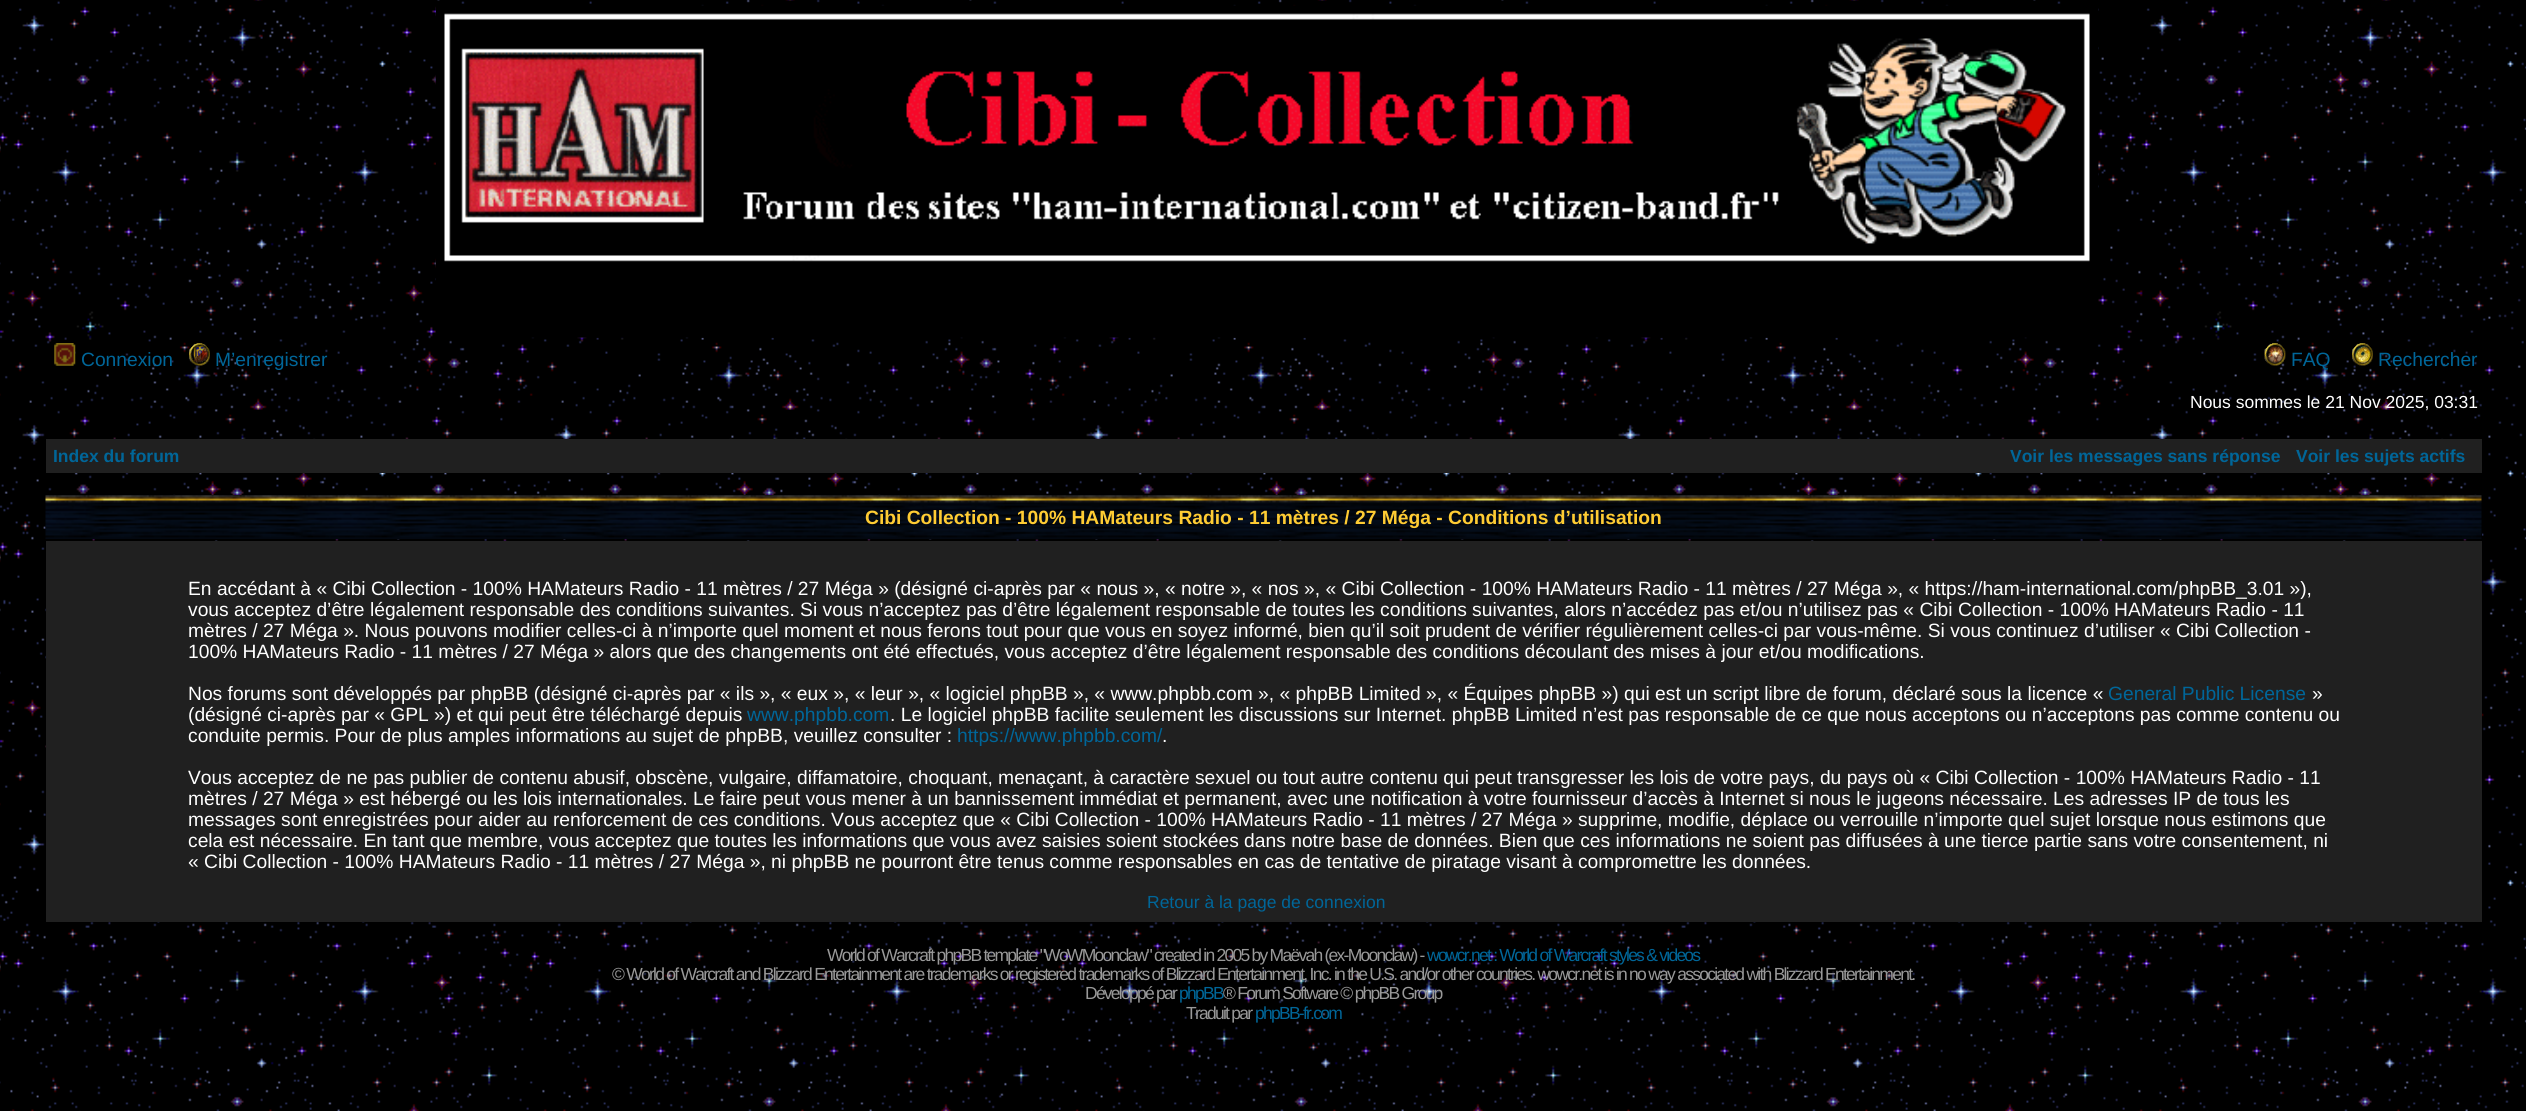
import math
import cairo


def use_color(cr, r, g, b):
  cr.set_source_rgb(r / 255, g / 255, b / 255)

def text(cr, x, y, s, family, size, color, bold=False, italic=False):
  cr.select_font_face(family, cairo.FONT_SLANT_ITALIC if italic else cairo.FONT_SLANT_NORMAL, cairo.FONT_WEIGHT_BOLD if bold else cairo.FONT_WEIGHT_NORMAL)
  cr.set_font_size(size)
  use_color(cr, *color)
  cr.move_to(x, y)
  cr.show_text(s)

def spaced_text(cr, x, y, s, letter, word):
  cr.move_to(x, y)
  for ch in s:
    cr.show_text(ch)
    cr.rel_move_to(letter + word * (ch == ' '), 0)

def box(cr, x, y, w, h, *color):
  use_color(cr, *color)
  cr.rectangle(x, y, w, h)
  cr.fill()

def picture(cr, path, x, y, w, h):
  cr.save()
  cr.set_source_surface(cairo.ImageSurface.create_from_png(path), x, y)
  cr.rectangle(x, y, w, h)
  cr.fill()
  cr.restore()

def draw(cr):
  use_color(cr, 255, 255, 255)
  cr.paint()
  picture(cr, "img_01.png", 0, 0, 2526, 1111)
  picture(cr, "img_02.png", 435, 5, 1664, 333)
  picture(cr, "img_03.png", 54, 343, 22, 23)
  picture(cr, "img_04.png", 189, 343, 21, 23)
  picture(cr, "img_05.png", 2264, 343, 22, 23)
  picture(cr, "img_06.png", 2352, 343, 21, 23)
  box(cr, 46, 439, 2436, 34, 32, 32, 32)
  box(cr, 67, 495, 2415, 44, 0, 0, 0)
  picture(cr, "img_07.png", 45, 495, 2437, 44)
  box(cr, 46, 541, 2436, 381, 32, 32, 32)
  text(cr, 81, 366, "Connexion", "Liberation Sans", 19.25, (0, 102, 153))
  text(cr, 215, 366, "M’enregistrer", "Liberation Sans", 19.25, (0, 102, 153))
  text(cr, 2291, 366, "FAQ", "Liberation Sans", 19.25, (0, 102, 153))
  text(cr, 2378, 366, "Rechercher", "Liberation Sans", 19.25, (0, 102, 153))
  text(cr, 2190, 408, "Nous sommes le 21 Nov 2025, 03:31", "Liberation Sans", 17.5, (255, 255, 255))
  text(cr, 53, 462, "Index du forum", "Liberation Sans", 17.5, (0, 102, 153), bold=True)
  text(cr, 2010, 462, "Voir les messages sans réponse", "Liberation Sans", 17.5, (0, 102, 153), bold=True)
  text(cr, 2296, 462, "Voir les sujets actifs", "Liberation Sans", 17.5, (0, 102, 153), bold=True)
  text(cr, 865, 524, "Cibi Collection - 100% HAMateurs Radio - 11 mètres / 27 Méga - Conditions d’utilisation", "Liberation Sans", 19.25, (255, 204, 51), bold=True)
  text(cr, 188, 595, "En accédant à « Cibi Collection - 100% HAMateurs Radio - 11 mètres / 27 Méga » (désigné ci-après par « nous », « notre », « nos », « Cibi Collection - 100% HAMateurs Radio - 11 mètres / 27 Méga », « https://ham-international.com/phpBB_3.01 »),", "Liberation Sans", 19.25, (255, 255, 255))
  text(cr, 188, 616, "vous acceptez d’être légalement responsable des conditions suivantes. Si vous n’acceptez pas d’être légalement responsable de toutes les conditions suivantes, alors n’accédez pas et/ou n’utilisez pas « Cibi Collection - 100% HAMateurs Radio - 11", "Liberation Sans", 19.25, (255, 255, 255))
  text(cr, 188, 637, "mètres / 27 Méga ». Nous pouvons modifier celles-ci à n’importe quel moment et nous ferons tout pour que vous en soyez informé, bien qu’il soit prudent de vérifier régulièrement celles-ci par vous-même. Si vous continuez d’utiliser « Cibi Collection -", "Liberation Sans", 19.25, (255, 255, 255))
  text(cr, 188, 658, "100% HAMateurs Radio - 11 mètres / 27 Méga » alors que des changements ont été effectués, vous acceptez d’être légalement responsable des conditions découlant des mises à jour et/ou modifications.", "Liberation Sans", 19.25, (255, 255, 255))
  text(cr, 188, 700, "Nos forums sont développés par phpBB (désigné ci-après par « ils », « eux », « leur », « logiciel phpBB », « www.phpbb.com », « phpBB Limited », « Équipes phpBB ») qui est un script libre de forum, déclaré sous la licence «", "Liberation Sans", 19.25, (255, 255, 255))
  text(cr, 2108, 700, "General Public License", "Liberation Sans", 19.25, (0, 102, 153))
  text(cr, 2312, 700, "»", "Liberation Sans", 19.25, (255, 255, 255))
  text(cr, 188, 721, "(désigné ci-après par « GPL ») et qui peut être téléchargé depuis", "Liberation Sans", 19.25, (255, 255, 255))
  text(cr, 747, 721, "www.phpbb.com", "Liberation Sans", 19.25, (0, 102, 153))
  text(cr, 890, 721, ". Le logiciel phpBB facilite seulement les discussions sur Internet. phpBB Limited n’est pas responsable de ce que nous acceptons ou n’acceptons pas comme contenu ou", "Liberation Sans", 19.25, (255, 255, 255))
  text(cr, 188, 742, "conduite permis. Pour de plus amples informations au sujet de phpBB, veuillez consulter :", "Liberation Sans", 19.25, (255, 255, 255))
  text(cr, 957, 742, "https://www.phpbb.com/", "Liberation Sans", 19.25, (0, 102, 153))
  text(cr, 1162, 742, ".", "Liberation Sans", 19.25, (255, 255, 255))
  text(cr, 188, 784, "Vous acceptez de ne pas publier de contenu abusif, obscène, vulgaire, diffamatoire, choquant, menaçant, à caractère sexuel ou tout autre contenu qui peut transgresser les lois de votre pays, du pays où « Cibi Collection - 100% HAMateurs Radio - 11", "Liberation Sans", 19.25, (255, 255, 255))
  text(cr, 188, 805, "mètres / 27 Méga » est hébergé ou les lois internationales. Le faire peut vous mener à un bannissement immédiat et permanent, avec une notification à votre fournisseur d’accès à Internet si nous le jugeons nécessaire. Les adresses IP de tous les", "Liberation Sans", 19.25, (255, 255, 255))
  text(cr, 188, 826, "messages sont enregistrées pour aider au renforcement de ces conditions. Vous acceptez que « Cibi Collection - 100% HAMateurs Radio - 11 mètres / 27 Méga » supprime, modifie, déplace ou verrouille n’importe quel sujet lorsque nous estimons que", "Liberation Sans", 19.25, (255, 255, 255))
  text(cr, 188, 847, "cela est nécessaire. En tant que membre, vous acceptez que toutes les informations que vous avez saisies soient stockées dans notre base de données. Bien que ces informations ne soient pas diffusées à une tierce partie sans votre consentement, ni", "Liberation Sans", 19.25, (255, 255, 255))
  text(cr, 188, 868, "« Cibi Collection - 100% HAMateurs Radio - 11 mètres / 27 Méga », ni phpBB ne pourront être tenus comme responsables en cas de tentative de piratage visant à compromettre les données.", "Liberation Sans", 19.25, (255, 255, 255))
  text(cr, 1147, 908, "Retour à la page de connexion", "Liberation Sans", 17.5, (0, 102, 153))
  use_color(cr, 153, 153, 153)
  spaced_text(cr, 827, 961, "World of Warcraft phpBB template \"WoWMoonclaw\" created in 2005 by Maëvah (ex-Moonclaw) -", -1.75, 0)
  use_color(cr, 0, 102, 153)
  spaced_text(cr, 1427, 961, "wowcr.net : World of Warcraft styles & videos", -1.75, 0)
  use_color(cr, 153, 153, 153)
  spaced_text(cr, 612, 980, "© World of Warcraft and Blizzard Entertainment are trademarks or registered trademarks of Blizzard Entertainment, Inc. in the U.S. and/or other countries. wowcr.net is in no way associated with Blizzard Entertainment.", -1.75, 0)
  spaced_text(cr, 1085, 999, "Développé par", -1.75, 0)
  use_color(cr, 0, 102, 153)
  spaced_text(cr, 1179, 999, "phpBB", -1.75, 0)
  use_color(cr, 153, 153, 153)
  spaced_text(cr, 1223, 999, "® Forum Software © phpBB Group", -1.75, 0)
  spaced_text(cr, 1186, 1019, "Traduit par", -1.75, 0)
  use_color(cr, 0, 102, 153)
  spaced_text(cr, 1255, 1019, "phpBB-fr.com", -1.75, 0)


surface = cairo.ImageSurface(cairo.FORMAT_RGB24, 2526, 1111)
cr = cairo.Context(surface)
options = cairo.FontOptions()
options.set_hint_metrics(cairo.HINT_METRICS_OFF)
options.set_hint_style(cairo.HINT_STYLE_NONE)
cr.set_font_options(options)
cr.set_miter_limit(4)
draw(cr)
surface.write_to_png("out.png")
